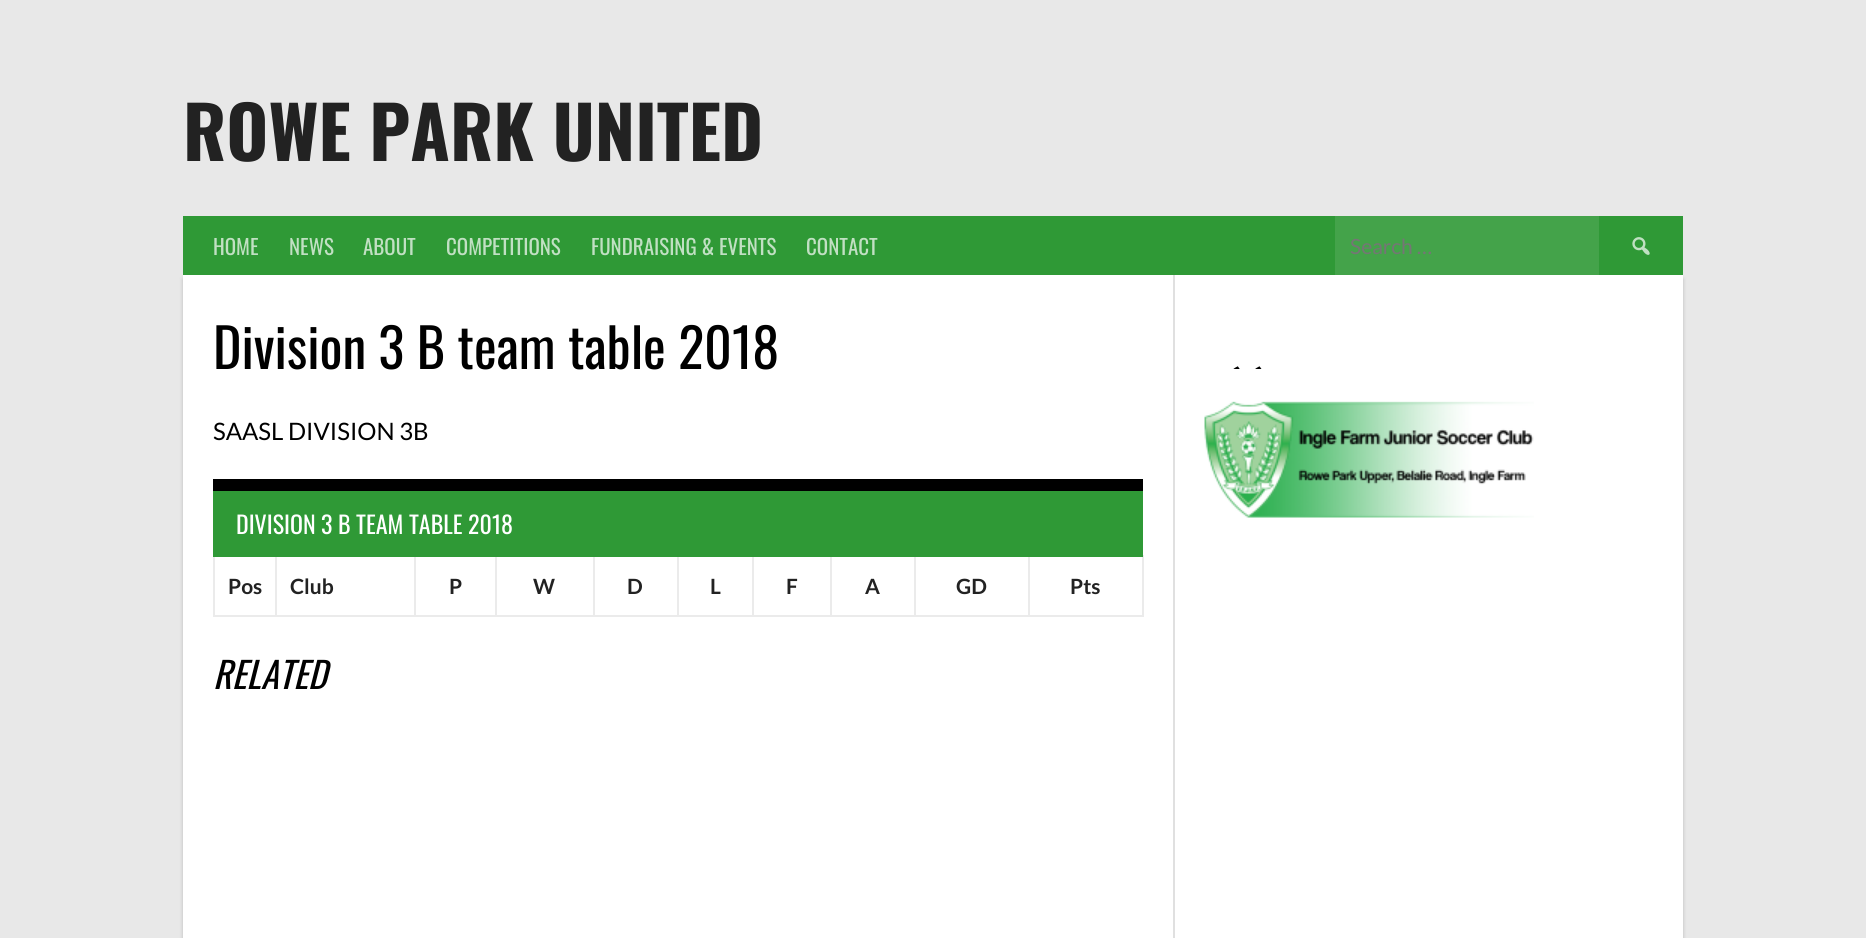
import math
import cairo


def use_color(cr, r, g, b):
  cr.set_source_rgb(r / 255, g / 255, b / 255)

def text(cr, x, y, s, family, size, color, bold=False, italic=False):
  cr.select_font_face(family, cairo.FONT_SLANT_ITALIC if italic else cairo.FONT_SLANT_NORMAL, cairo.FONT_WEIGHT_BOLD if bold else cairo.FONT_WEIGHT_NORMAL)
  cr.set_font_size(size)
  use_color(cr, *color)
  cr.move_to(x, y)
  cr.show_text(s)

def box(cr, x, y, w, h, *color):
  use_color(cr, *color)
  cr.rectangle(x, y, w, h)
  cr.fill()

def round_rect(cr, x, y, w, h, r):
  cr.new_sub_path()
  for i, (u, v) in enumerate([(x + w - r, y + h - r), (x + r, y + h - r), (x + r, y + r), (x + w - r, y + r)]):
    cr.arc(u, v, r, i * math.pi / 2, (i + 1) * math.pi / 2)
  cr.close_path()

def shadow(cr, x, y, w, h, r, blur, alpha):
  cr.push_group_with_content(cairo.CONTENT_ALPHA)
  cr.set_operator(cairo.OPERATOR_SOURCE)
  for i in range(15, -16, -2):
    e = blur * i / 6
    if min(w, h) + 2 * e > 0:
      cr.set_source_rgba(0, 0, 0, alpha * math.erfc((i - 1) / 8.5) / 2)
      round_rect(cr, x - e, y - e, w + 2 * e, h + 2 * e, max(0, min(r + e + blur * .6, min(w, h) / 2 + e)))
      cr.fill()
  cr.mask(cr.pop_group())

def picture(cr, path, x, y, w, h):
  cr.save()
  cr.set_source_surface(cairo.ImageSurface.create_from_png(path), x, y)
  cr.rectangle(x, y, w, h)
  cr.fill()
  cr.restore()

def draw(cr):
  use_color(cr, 232, 232, 232)
  cr.paint()
  use_color(cr, 0, 0, 0)
  shadow(cr, 183, 279, 1500, 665, 0, 2, 0.2)
  box(cr, 183, 216, 1500, 59, 47, 153, 54)
  box(cr, 1335, 216, 264, 59, 68, 163, 74)
  picture(cr, "img_01.png", 1632, 237, 18, 18)
  box(cr, 183, 275, 1500, 663, 255, 255, 255)
  use_color(cr, 224, 224, 224)
  cr.new_path()
  cr.move_to(185, 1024)
  cr.line_to(185, 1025)
  cr.line_to(1175, 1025)
  cr.line_to(1175, 275)
  cr.line_to(1173, 275)
  cr.line_to(1173, 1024)
  cr.close_path()
  cr.fill()
  box(cr, 1142, 555, 2, 62, 235, 235, 235)
  box(cr, 213, 615, 930, 2, 235, 235, 235)
  box(cr, 213, 555, 2, 62, 235, 235, 235)
  box(cr, 275, 555, 2, 62, 235, 235, 235)
  box(cr, 414, 555, 2, 62, 235, 235, 235)
  box(cr, 495, 555, 2, 62, 235, 235, 235)
  box(cr, 593, 555, 2, 62, 235, 235, 235)
  box(cr, 677, 555, 2, 62, 235, 235, 235)
  box(cr, 752, 555, 2, 62, 235, 235, 235)
  box(cr, 830, 555, 2, 62, 235, 235, 235)
  box(cr, 914, 555, 2, 62, 235, 235, 235)
  box(cr, 1028, 555, 2, 62, 235, 235, 235)
  box(cr, 213, 491, 930, 66, 47, 153, 54)
  box(cr, 213, 479, 930, 12, 0, 0, 0)
  picture(cr, "img_02.png", 1233, 366, 29, 3)
  picture(cr, "img_03.png", 1204, 401, 330, 117)
  text(cr, 183, 161, "ROWE PARK UNITED", "Oswald", 72, (34, 34, 34), bold=True)
  text(cr, 213, 255, "HOME", "Oswald", 21, (193, 224, 195))
  text(cr, 289, 255, "NEWS", "Oswald", 21, (193, 224, 195))
  text(cr, 363, 255, "ABOUT", "Oswald", 21, (193, 224, 195))
  text(cr, 446, 255, "COMPETITIONS", "Oswald", 21, (193, 224, 195))
  text(cr, 591, 255, "FUNDRAISING & EVENTS", "Oswald", 21, (193, 224, 195))
  text(cr, 806, 255, "CONTACT", "Oswald", 21, (193, 224, 195))
  text(cr, 1350, 254, "Search …", "Lato", 21, (117, 117, 117))
  text(cr, 213, 369, "Division 3 B team table 2018", "Oswald", 54, (0, 0, 0))
  text(cr, 213, 440, "SAASL DIVISION 3B", "Lato", 24, (0, 0, 0))
  text(cr, 236, 534, "DIVISION 3 B TEAM TABLE 2018", "Oswald", 24, (255, 255, 255))
  text(cr, 228, 594, "Pos", "Lato", 21, (34, 34, 34), bold=True)
  text(cr, 290, 594, "Club", "Lato", 21, (34, 34, 34), bold=True)
  text(cr, 449, 594, "P", "Lato", 21, (34, 34, 34), bold=True)
  text(cr, 533, 594, "W", "Lato", 21, (34, 34, 34), bold=True)
  text(cr, 627, 594, "D", "Lato", 21, (34, 34, 34), bold=True)
  text(cr, 710, 594, "L", "Lato", 21, (34, 34, 34), bold=True)
  text(cr, 786, 594, "F", "Lato", 21, (34, 34, 34), bold=True)
  text(cr, 865, 594, "A", "Lato", 21, (34, 34, 34), bold=True)
  text(cr, 956, 594, "GD", "Lato", 21, (34, 34, 34), bold=True)
  text(cr, 1070, 594, "Pts", "Lato", 21, (34, 34, 34), bold=True)
  text(cr, 213, 689, "RELATED", "Oswald", 36, (0, 0, 0), italic=True)


surface = cairo.ImageSurface(cairo.FORMAT_RGB24, 1866, 938)
cr = cairo.Context(surface)
options = cairo.FontOptions()
options.set_hint_metrics(cairo.HINT_METRICS_OFF)
options.set_hint_style(cairo.HINT_STYLE_NONE)
cr.set_font_options(options)
cr.set_miter_limit(4)
draw(cr)
surface.write_to_png("out.png")
